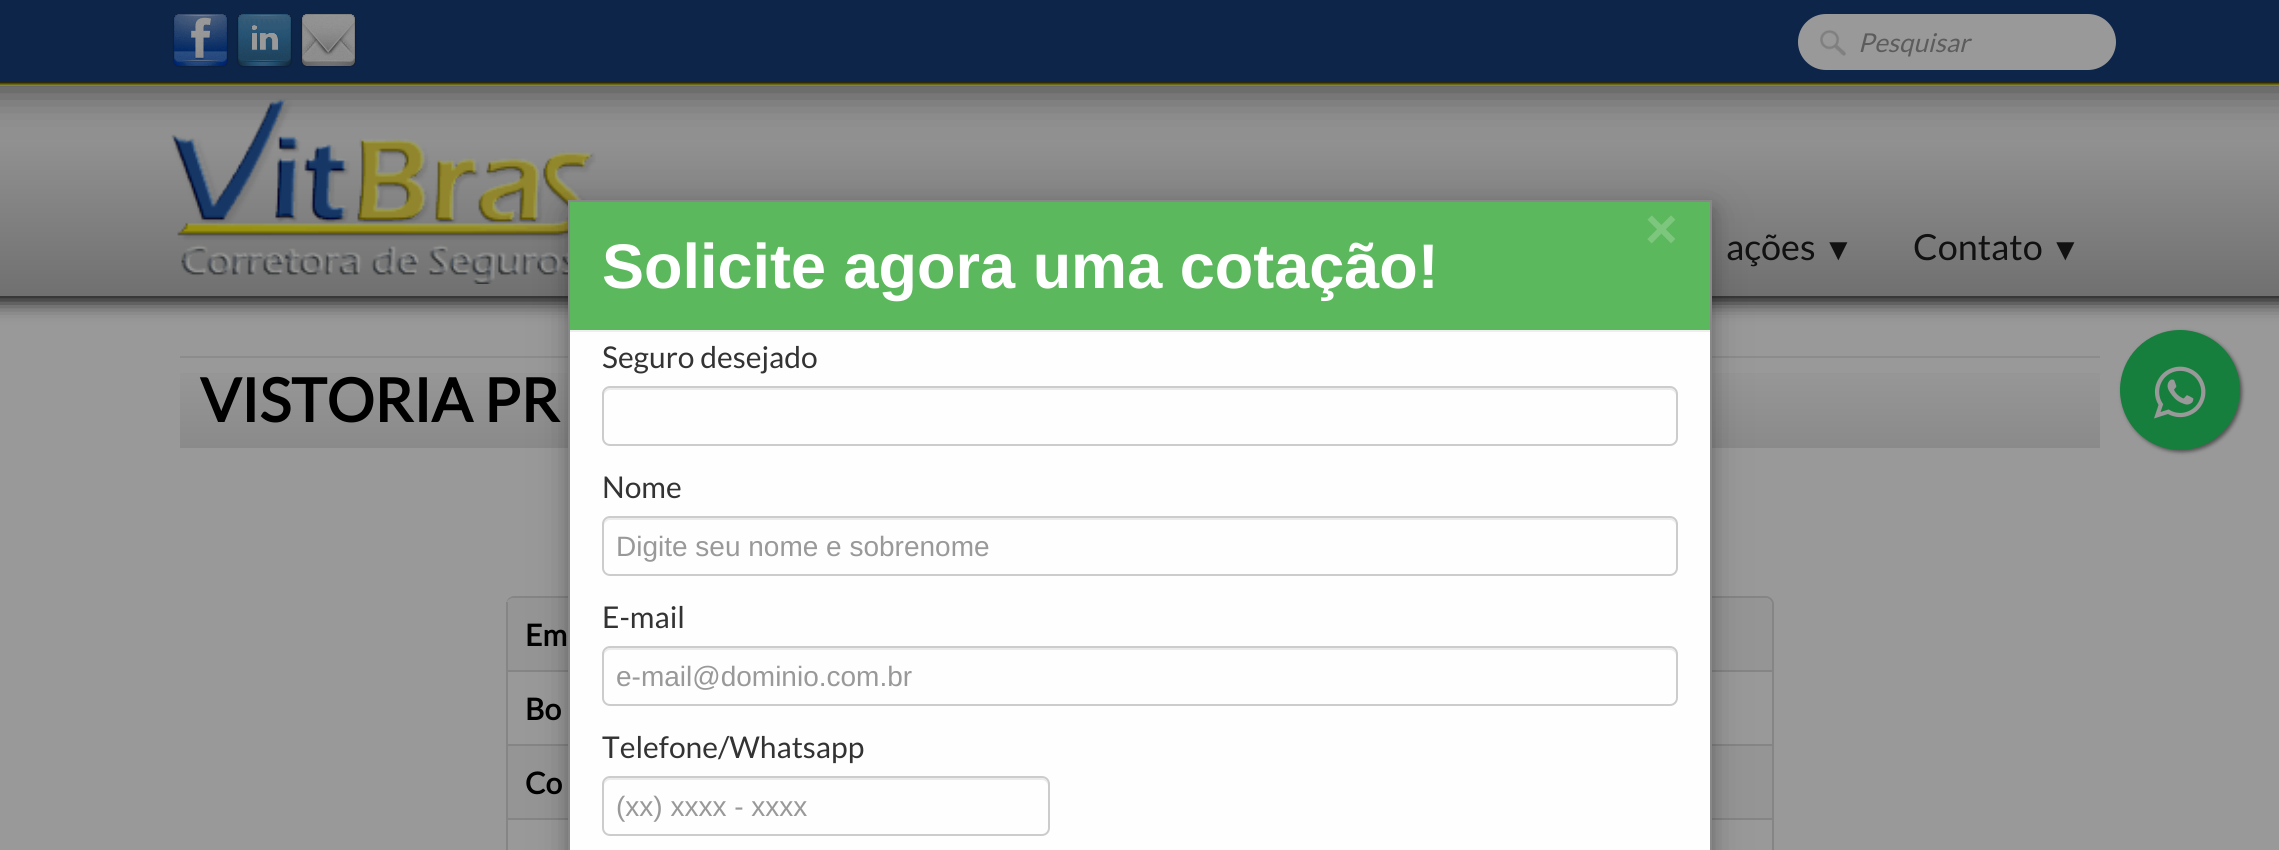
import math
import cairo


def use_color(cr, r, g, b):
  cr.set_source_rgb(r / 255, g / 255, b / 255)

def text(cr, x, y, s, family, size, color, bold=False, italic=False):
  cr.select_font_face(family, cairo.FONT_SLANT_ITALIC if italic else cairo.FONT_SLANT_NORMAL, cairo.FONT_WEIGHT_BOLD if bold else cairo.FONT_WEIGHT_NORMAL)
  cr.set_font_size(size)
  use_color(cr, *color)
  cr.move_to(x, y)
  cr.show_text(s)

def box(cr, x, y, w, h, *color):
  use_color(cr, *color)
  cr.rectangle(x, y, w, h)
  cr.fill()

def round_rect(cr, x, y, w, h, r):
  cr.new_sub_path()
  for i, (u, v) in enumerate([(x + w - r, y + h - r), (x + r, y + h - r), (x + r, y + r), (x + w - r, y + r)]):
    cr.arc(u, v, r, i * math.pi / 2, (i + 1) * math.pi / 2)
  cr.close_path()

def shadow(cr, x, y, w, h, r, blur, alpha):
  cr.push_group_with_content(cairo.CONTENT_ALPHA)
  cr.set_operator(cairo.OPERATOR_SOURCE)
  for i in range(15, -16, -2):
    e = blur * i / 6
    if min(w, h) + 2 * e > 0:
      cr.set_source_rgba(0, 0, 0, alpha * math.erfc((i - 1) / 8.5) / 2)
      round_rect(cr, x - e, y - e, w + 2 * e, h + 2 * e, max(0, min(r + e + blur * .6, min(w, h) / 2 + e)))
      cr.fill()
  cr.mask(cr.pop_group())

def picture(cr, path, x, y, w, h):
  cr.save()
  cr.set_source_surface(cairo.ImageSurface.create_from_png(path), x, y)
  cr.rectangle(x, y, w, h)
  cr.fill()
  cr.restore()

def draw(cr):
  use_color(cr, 153, 153, 153)
  cr.paint()
  use_color(cr, 0, 0, 0)
  shadow(cr, -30, 28, 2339, 272, 0, 10, 1)
  gradient = cairo.LinearGradient(1140, 0, 1140, 296)
  gradient.add_color_stop_rgba(0, 0.576, 0.576, 0.576, 1)
  gradient.add_color_stop_rgba(0.47, 0.569, 0.569, 0.569, 1)
  gradient.add_color_stop_rgba(1, 0.439, 0.439, 0.439, 1)
  cr.set_source(gradient)
  cr.rectangle(0, 86, 2279, 210)
  cr.fill()
  use_color(cr, 0, 0, 0)
  shadow(cr, -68, 4, 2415, 86, 8, 20, 0.5)
  gradient = cairo.LinearGradient(1140, 0, 1140, 86)
  gradient.add_color_stop_rgba(0.95, 0.055, 0.145, 0.29, 1)
  gradient.add_color_stop_rgba(0.95, 0.075, 0.067, 0.024, 1)
  gradient.add_color_stop_rgba(1, 0.6, 0.6, 0.11, 1)
  cr.set_source(gradient)
  cr.rectangle(0, 0, 2279, 86)
  cr.fill()
  picture(cr, "img_01.png", 172, 14, 57, 54)
  picture(cr, "img_02.png", 236, 14, 57, 54)
  picture(cr, "img_03.png", 300, 14, 57, 54)
  use_color(cr, 153, 153, 153)
  round_rect(cr, 1798, 14, 318, 56, 28)
  cr.fill()
  picture(cr, "img_04.png", 1820, 30, 26, 26)
  picture(cr, "img_05.png", 171, 98, 425, 186)
  gradient = cairo.LinearGradient(1140, 358, 1140, 448)
  gradient.add_color_stop_rgba(0, 0.6, 0.6, 0.6, 1)
  gradient.add_color_stop_rgba(1, 0.541, 0.541, 0.541, 1)
  cr.set_source(gradient)
  cr.rectangle(180, 373, 1920, 75)
  cr.fill()
  box(cr, 180, 356, 1920, 2, 140, 140, 140)
  use_color(cr, 133, 133, 133)
  cr.set_fill_rule(cairo.FILL_RULE_EVEN_ODD)
  cr.new_path()
  cr.move_to(514, 596)
  cr.line_to(1766, 596)
  cr.curve_to(1770, 596, 1774, 600, 1774, 604)
  cr.line_to(1774, 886)
  cr.curve_to(1774, 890, 1770, 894, 1766, 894)
  cr.line_to(514, 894)
  cr.curve_to(510, 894, 506, 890, 506, 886)
  cr.line_to(506, 604)
  cr.curve_to(506, 600, 510, 596, 514, 596)
  cr.close_path()
  cr.move_to(514, 598)
  cr.line_to(1766, 598)
  cr.curve_to(1769, 598, 1772, 601, 1772, 604)
  cr.line_to(1772, 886)
  cr.curve_to(1772, 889, 1769, 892, 1766, 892)
  cr.line_to(514, 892)
  cr.curve_to(510, 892, 506, 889, 506, 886)
  cr.line_to(506, 604)
  cr.curve_to(506, 601, 510, 598, 514, 598)
  cr.close_path()
  cr.fill()
  use_color(cr, 149, 149, 149)
  cr.new_path()
  cr.move_to(514, 598)
  cr.line_to(998, 598)
  cr.line_to(998, 670)
  cr.line_to(506, 670)
  cr.line_to(506, 606)
  cr.curve_to(506, 601.5, 509.5, 598, 514, 598)
  cr.close_path()
  cr.fill()
  box(cr, 506, 602, 2, 68, 133, 133, 133)
  use_color(cr, 149, 149, 149)
  cr.new_path()
  cr.move_to(998, 598)
  cr.line_to(1764, 598)
  cr.curve_to(1768.5, 598, 1772, 601.5, 1772, 606)
  cr.line_to(1772, 670)
  cr.line_to(998, 670)
  cr.close_path()
  cr.fill()
  box(cr, 1712, 670, 60, 2, 133, 133, 133)
  box(cr, 506, 670, 62, 2, 133, 133, 133)
  box(cr, 506, 670, 2, 74, 133, 133, 133)
  box(cr, 508, 746, 60, 72, 149, 149, 149)
  box(cr, 506, 744, 62, 2, 133, 133, 133)
  box(cr, 506, 744, 2, 74, 133, 133, 133)
  box(cr, 1712, 746, 60, 72, 149, 149, 149)
  box(cr, 1712, 744, 60, 2, 133, 133, 133)
  box(cr, 506, 818, 62, 2, 133, 133, 133)
  box(cr, 506, 818, 2, 32, 133, 133, 133)
  box(cr, 1712, 818, 60, 2, 133, 133, 133)
  use_color(cr, 82, 82, 82)
  shadow(cr, 2122, 332, 120, 120, 60, 2, 1)
  use_color(cr, 22, 127, 61)
  cr.arc(2180, 390, 60, 0, 2 * math.pi)
  cr.fill()
  picture(cr, "img_06.png", 2154, 366, 52, 53)
  use_color(cr, 0, 0, 0)
  shadow(cr, 568, 212, 1144, 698, 0, 20, 0.19)
  shadow(cr, 568, 208, 1144, 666, 0, 8, 0.2)
  box(cr, 570, 332, 1140, 518, 254, 254, 254)
  cr.rectangle(569, 201, 1142, 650)
  use_color(cr, 136, 136, 136)
  cr.stroke()
  box(cr, 570, 202, 1140, 128, 92, 184, 92)
  box(cr, 570, 330, 1140, 2, 238, 238, 238)
  use_color(cr, 235, 235, 235)
  cr.set_fill_rule(cairo.FILL_RULE_WINDING)
  cr.new_path()
  cr.move_to(610, 390)
  cr.line_to(1670, 390)
  cr.curve_to(1673, 390, 1676, 393, 1676, 396)
  cr.line_to(1676, 394)
  cr.curve_to(1676, 391, 1673, 388, 1670, 388)
  cr.line_to(610, 388)
  cr.curve_to(607, 388, 604, 391, 604, 394)
  cr.line_to(604, 396)
  cr.curve_to(604, 393, 607, 390, 610, 390)
  cr.close_path()
  cr.fill()
  round_rect(cr, 603, 387, 1074, 58, 7)
  use_color(cr, 204, 204, 204)
  cr.stroke()
  use_color(cr, 235, 235, 235)
  cr.new_path()
  cr.move_to(610, 520)
  cr.line_to(1670, 520)
  cr.curve_to(1673, 520, 1676, 523, 1676, 526)
  cr.line_to(1676, 524)
  cr.curve_to(1676, 521, 1673, 518, 1670, 518)
  cr.line_to(610, 518)
  cr.curve_to(607, 518, 604, 521, 604, 524)
  cr.line_to(604, 526)
  cr.curve_to(604, 523, 607, 520, 610, 520)
  cr.close_path()
  cr.fill()
  round_rect(cr, 603, 517, 1074, 58, 7)
  use_color(cr, 204, 204, 204)
  cr.stroke()
  use_color(cr, 235, 235, 235)
  cr.new_path()
  cr.move_to(610, 650)
  cr.line_to(1670, 650)
  cr.curve_to(1673, 650, 1676, 653, 1676, 656)
  cr.line_to(1676, 654)
  cr.curve_to(1676, 651, 1673, 648, 1670, 648)
  cr.line_to(610, 648)
  cr.curve_to(607, 648, 604, 651, 604, 654)
  cr.line_to(604, 656)
  cr.curve_to(604, 653, 607, 650, 610, 650)
  cr.close_path()
  cr.fill()
  round_rect(cr, 603, 647, 1074, 58, 7)
  use_color(cr, 204, 204, 204)
  cr.stroke()
  use_color(cr, 235, 235, 235)
  cr.new_path()
  cr.move_to(610, 780)
  cr.line_to(1042, 780)
  cr.curve_to(1045, 780, 1048, 783, 1048, 786)
  cr.line_to(1048, 784)
  cr.curve_to(1048, 781, 1045, 778, 1042, 778)
  cr.line_to(610, 778)
  cr.curve_to(607, 778, 604, 781, 604, 784)
  cr.line_to(604, 786)
  cr.curve_to(604, 783, 607, 780, 610, 780)
  cr.close_path()
  cr.fill()
  round_rect(cr, 603, 777, 446, 58, 7)
  use_color(cr, 204, 204, 204)
  cr.stroke()
  text(cr, 1858, 52, "Pesquisar", "Lato", 26, (92, 92, 92), italic=True)
  text(cr, 1726, 260, "ações", "Lato", 36, (17, 17, 17))
  text(cr, 1823, 260, "▼", "Liberation Serif", 31, (17, 17, 17))
  text(cr, 1913, 260, "Contato", "Lato", 36, (17, 17, 17))
  text(cr, 2050, 260, "▼", "Liberation Serif", 31, (17, 17, 17))
  text(cr, 200, 422, "VISTORIA PR", "Lato", 60, (0, 0, 0), bold=True)
  text(cr, 525, 646, "Em", "Lato", 30, (0, 0, 0), bold=True)
  text(cr, 525, 720, "Bo", "Lato", 30, (0, 0, 0), bold=True)
  text(cr, 525, 794, "Co", "Lato", 30, (0, 0, 0), bold=True)
  text(cr, 1645, 248, "×", "Liberation Sans", 56, (125, 198, 125), bold=True)
  text(cr, 602, 288, "Solicite agora uma cotação!", "Liberation Sans", 63, (255, 255, 255), bold=True)
  text(cr, 602, 368, "Seguro desejado", "Lato", 30, (51, 51, 51))
  text(cr, 602, 498, "Nome", "Lato", 30, (51, 51, 51))
  text(cr, 616, 556, "Digite seu nome e sobrenome", "Liberation Sans", 28, (153, 153, 153))
  text(cr, 602, 628, "E-mail", "Lato", 30, (51, 51, 51))
  text(cr, 616, 686, "e-mail@dominio.com.br", "Liberation Sans", 28, (153, 153, 153))
  text(cr, 602, 758, "Telefone/Whatsapp", "Lato", 30, (51, 51, 51))
  text(cr, 616, 816, "(xx) xxxx - xxxx", "Liberation Sans", 28, (153, 153, 153))


surface = cairo.ImageSurface(cairo.FORMAT_RGB24, 2279, 850)
cr = cairo.Context(surface)
options = cairo.FontOptions()
options.set_hint_metrics(cairo.HINT_METRICS_OFF)
options.set_hint_style(cairo.HINT_STYLE_NONE)
cr.set_font_options(options)
cr.set_miter_limit(4)
draw(cr)
surface.write_to_png("out.png")
